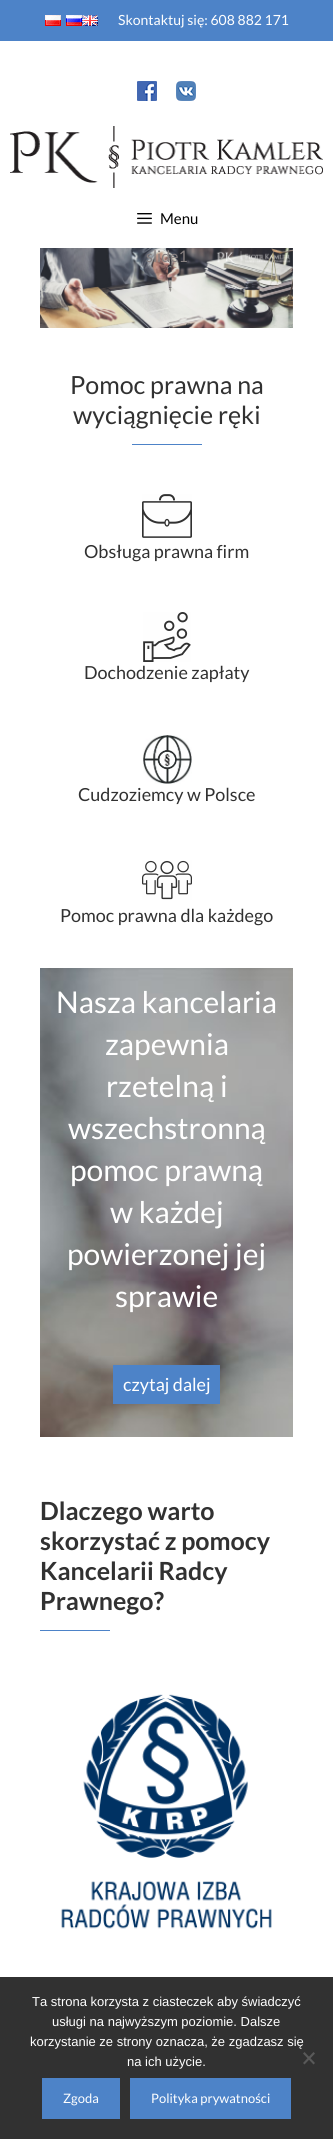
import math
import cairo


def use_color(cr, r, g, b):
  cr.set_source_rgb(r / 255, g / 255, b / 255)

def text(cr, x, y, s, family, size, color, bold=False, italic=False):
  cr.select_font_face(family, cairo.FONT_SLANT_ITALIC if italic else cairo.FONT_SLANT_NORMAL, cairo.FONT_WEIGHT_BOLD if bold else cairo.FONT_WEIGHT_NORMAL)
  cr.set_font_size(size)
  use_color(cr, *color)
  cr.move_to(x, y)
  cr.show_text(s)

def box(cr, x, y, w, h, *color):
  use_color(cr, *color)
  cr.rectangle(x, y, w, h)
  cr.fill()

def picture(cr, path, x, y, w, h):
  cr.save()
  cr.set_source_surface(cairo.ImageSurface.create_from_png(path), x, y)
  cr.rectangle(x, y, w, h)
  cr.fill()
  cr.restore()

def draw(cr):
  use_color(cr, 255, 255, 255)
  cr.paint()
  box(cr, 0, 0, 333, 41, 77, 131, 200)
  picture(cr, "img_01.png", 45, 15, 16, 11)
  picture(cr, "img_02.png", 66, 15, 16, 11)
  picture(cr, "img_03.png", 82, 15, 16, 11)
  picture(cr, "img_04.png", 137, 81, 20, 20)
  picture(cr, "img_05.png", 176, 81, 20, 20)
  picture(cr, "img_06.png", 10, 126, 313, 62)
  picture(cr, "img_07.png", 137, 213, 15, 11)
  picture(cr, "img_08.png", 40, 248, 253, 80)
  box(cr, 132, 444, 70, 1, 77, 131, 200)
  picture(cr, "img_09.png", 142, 494, 50, 44)
  picture(cr, "img_10.png", 143, 612, 48, 50)
  picture(cr, "img_11.png", 143, 735, 49, 49)
  picture(cr, "img_12.png", 142, 860, 50, 40)
  picture(cr, "img_13.png", 40, 968, 253, 469)
  box(cr, 113, 1365, 107, 39, 77, 131, 200)
  box(cr, 40, 1630, 70, 1, 77, 131, 200)
  picture(cr, "img_14.png", 61, 1694, 211, 235)
  box(cr, 0, 1977, 333, 162, 49, 49, 49)
  use_color(cr, 89, 89, 89)
  cr.new_path()
  cr.move_to(313.5, 2052)
  cr.line_to(315, 2053.5)
  cr.line_to(304.5, 2064.5)
  cr.line_to(303, 2063)
  cr.close_path()
  cr.fill()
  cr.new_path()
  cr.move_to(303, 2053.5)
  cr.line_to(304.5, 2052)
  cr.line_to(315, 2063)
  cr.line_to(313.5, 2064.5)
  cr.close_path()
  cr.fill()
  box(cr, 42, 2078, 78, 41, 77, 131, 200)
  box(cr, 130, 2078, 161, 41, 77, 131, 200)
  text(cr, 118, 25, "Skontaktuj się: 608 882 171", "Lato", 14, (255, 255, 255))
  text(cr, 160, 224, "Menu", "Lato", 15, (0, 0, 0))
  text(cr, 146, 262, "slide1", "Lato", 16, (134, 127, 127))
  text(cr, 70, 394, "Pomoc prawna na", "Lato", 25, (49, 49, 49))
  text(cr, 73, 424, "wyciągnięcie ręki", "Lato", 25, (49, 49, 49))
  text(cr, 84, 558, "Obsługa prawna firm", "Lato", 18, (49, 49, 49))
  text(cr, 84, 679, "Dochodzenie zapłaty", "Lato", 18, (49, 49, 49))
  text(cr, 78, 801, "Cudzoziemcy w Polsce", "Lato", 18, (49, 49, 49))
  text(cr, 60, 922, "Pomoc prawna dla każdego", "Lato", 18, (49, 49, 49))
  text(cr, 56, 1013, "Nasza kancelaria", "Lato", 30, (255, 255, 255))
  text(cr, 105, 1055, "zapewnia", "Lato", 30, (255, 255, 255))
  text(cr, 106, 1097, "rzetelną i", "Lato", 30, (255, 255, 255))
  text(cr, 68, 1139, "wszechstronną", "Lato", 30, (255, 255, 255))
  text(cr, 70, 1181, "pomoc prawną", "Lato", 30, (255, 255, 255))
  text(cr, 110, 1223, "w każdej", "Lato", 30, (255, 255, 255))
  text(cr, 67, 1265, "powierzonej jej", "Lato", 30, (255, 255, 255))
  text(cr, 115, 1307, "sprawie", "Lato", 30, (255, 255, 255))
  text(cr, 123, 1391, "czytaj dalej", "Lato", 18, (255, 255, 255))
  text(cr, 40, 1520, "Dlaczego warto", "Lato", 25, (49, 49, 49), bold=True)
  text(cr, 40, 1550, "skorzystać z pomocy", "Lato", 25, (49, 49, 49), bold=True)
  text(cr, 40, 1580, "Kancelarii Radcy", "Lato", 25, (49, 49, 49), bold=True)
  text(cr, 40, 1610, "Prawnego?", "Lato", 25, (49, 49, 49), bold=True)
  text(cr, 32, 2006, "Ta strona korzysta z ciasteczek aby świadczyć", "Liberation Sans", 13, (255, 255, 255))
  text(cr, 52, 2026, "usługi na najwyższym poziomie. Dalsze", "Liberation Sans", 13, (255, 255, 255))
  text(cr, 30, 2046, "korzystanie ze strony oznacza, że zgadzasz się", "Liberation Sans", 13, (255, 255, 255))
  text(cr, 127, 2066, "na ich użycie.", "Liberation Sans", 13, (255, 255, 255))
  text(cr, 63, 2103, "Zgoda", "Lato", 13, (255, 255, 255))
  text(cr, 151, 2103, "Polityka prywatności", "Lato", 13, (255, 255, 255))


surface = cairo.ImageSurface(cairo.FORMAT_RGB24, 333, 2139)
cr = cairo.Context(surface)
options = cairo.FontOptions()
options.set_hint_metrics(cairo.HINT_METRICS_OFF)
options.set_hint_style(cairo.HINT_STYLE_NONE)
cr.set_font_options(options)
cr.set_miter_limit(4)
draw(cr)
surface.write_to_png("out.png")
